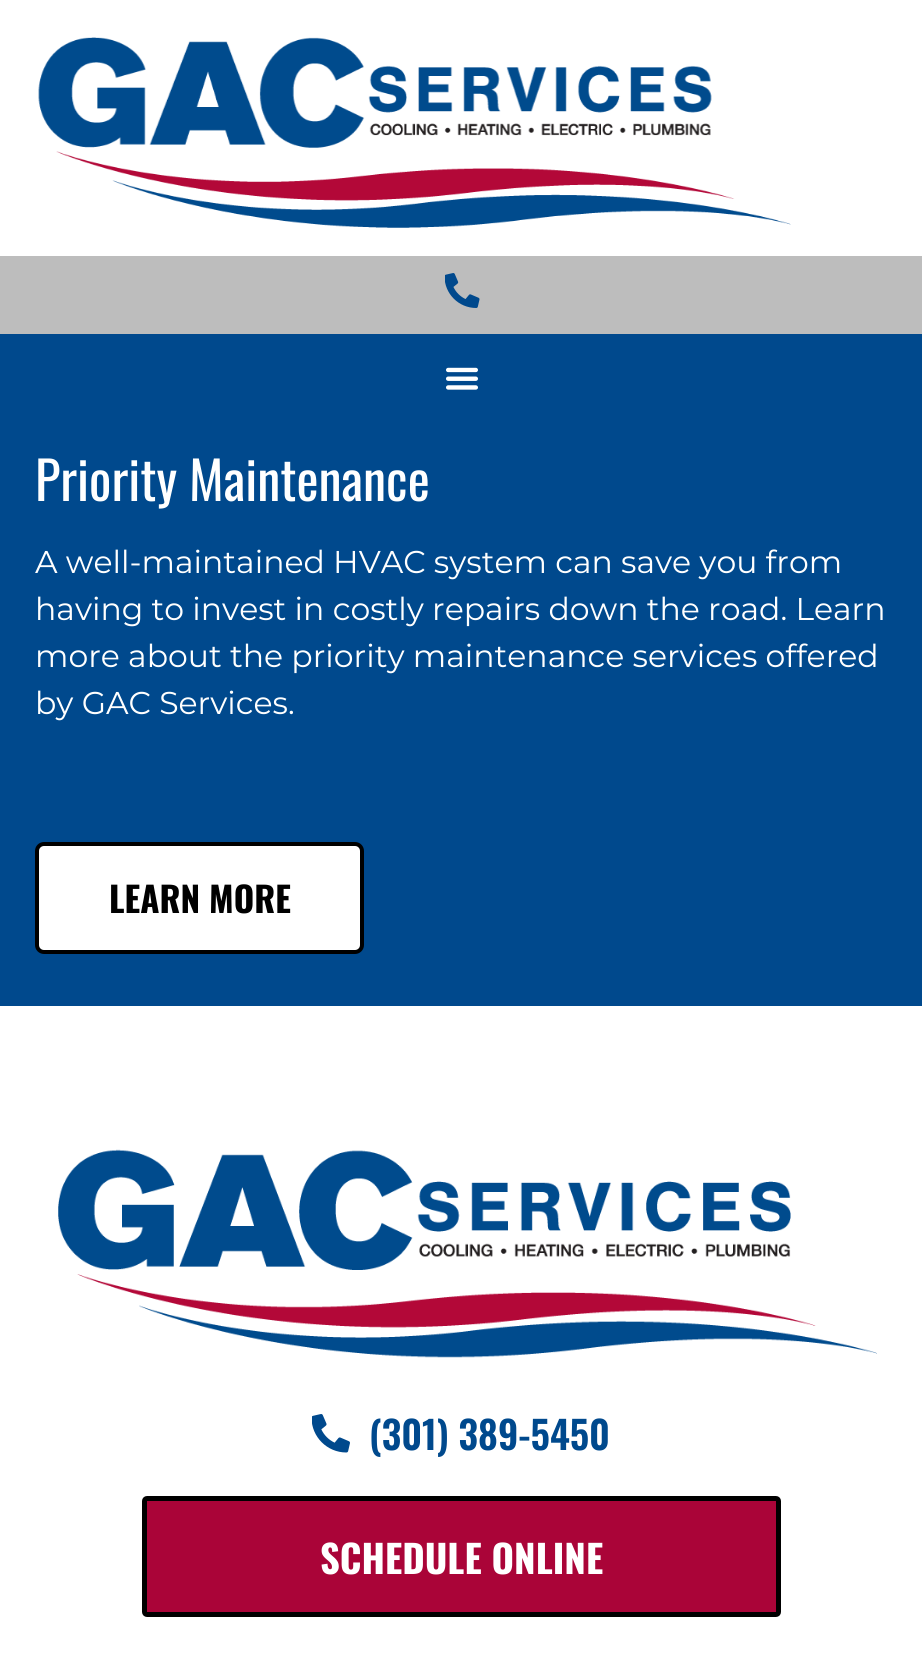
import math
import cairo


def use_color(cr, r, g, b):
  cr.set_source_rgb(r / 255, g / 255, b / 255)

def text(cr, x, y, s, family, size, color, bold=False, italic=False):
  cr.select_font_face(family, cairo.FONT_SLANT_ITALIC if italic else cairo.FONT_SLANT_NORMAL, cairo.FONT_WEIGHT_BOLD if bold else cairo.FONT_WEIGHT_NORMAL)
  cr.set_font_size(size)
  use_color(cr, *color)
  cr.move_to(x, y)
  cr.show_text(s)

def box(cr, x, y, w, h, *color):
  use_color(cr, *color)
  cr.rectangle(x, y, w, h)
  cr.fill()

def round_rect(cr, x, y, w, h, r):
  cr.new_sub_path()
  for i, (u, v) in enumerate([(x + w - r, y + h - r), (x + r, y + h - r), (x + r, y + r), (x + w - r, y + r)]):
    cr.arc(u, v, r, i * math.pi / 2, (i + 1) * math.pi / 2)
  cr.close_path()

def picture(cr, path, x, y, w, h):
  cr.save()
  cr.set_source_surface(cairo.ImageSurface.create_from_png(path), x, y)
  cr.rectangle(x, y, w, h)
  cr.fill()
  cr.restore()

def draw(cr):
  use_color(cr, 255, 255, 255)
  cr.paint()
  picture(cr, "img_01.png", 38, 37, 753, 191)
  box(cr, 0, 256, 922, 78, 189, 189, 189)
  picture(cr, "img_02.png", 445, 273, 35, 35)
  box(cr, 0, 334, 922, 672, 0, 73, 141)
  picture(cr, "img_03.png", 446, 367, 32, 23)
  use_color(cr, 255, 255, 255)
  round_rect(cr, 37, 844, 325, 108, 7)
  cr.fill_preserve()
  use_color(cr, 0, 0, 0)
  cr.set_line_width(4)
  cr.stroke()
  picture(cr, "img_04.png", 58, 1149, 819, 209)
  picture(cr, "img_05.png", 312, 1414, 38, 39)
  use_color(cr, 170, 4, 56)
  round_rect(cr, 144.5, 1498.5, 634, 116, 2.5)
  cr.fill_preserve()
  use_color(cr, 0, 0, 0)
  cr.set_line_width(5)
  cr.stroke()
  text(cr, 35, 501, "Priority Maintenance", "Oswald", 52.5, (255, 255, 255))
  text(cr, 35, 573, "A well-maintained HVAC system can save you from", "Montserrat", 31.5, (255, 255, 255))
  text(cr, 35, 620, "having to invest in costly repairs down the road. Learn", "Montserrat", 31.5, (255, 255, 255))
  text(cr, 35, 667, "more about the priority maintenance services offered", "Montserrat", 31.5, (255, 255, 255))
  text(cr, 35, 714, "by GAC Services.", "Montserrat", 31.5, (255, 255, 255))
  text(cr, 109, 913, "LEARN MORE", "Oswald", 35, (0, 0, 0), bold=True)
  text(cr, 369, 1450, "(301) 389-5450", "Oswald SemiBold", 38.5, (0, 73, 141))
  text(cr, 320, 1574, "SCHEDULE ONLINE", "Oswald", 38.5, (255, 255, 255), bold=True)


surface = cairo.ImageSurface(cairo.FORMAT_RGB24, 922, 1677)
cr = cairo.Context(surface)
options = cairo.FontOptions()
options.set_hint_metrics(cairo.HINT_METRICS_OFF)
options.set_hint_style(cairo.HINT_STYLE_NONE)
cr.set_font_options(options)
cr.set_miter_limit(4)
draw(cr)
surface.write_to_png("out.png")
